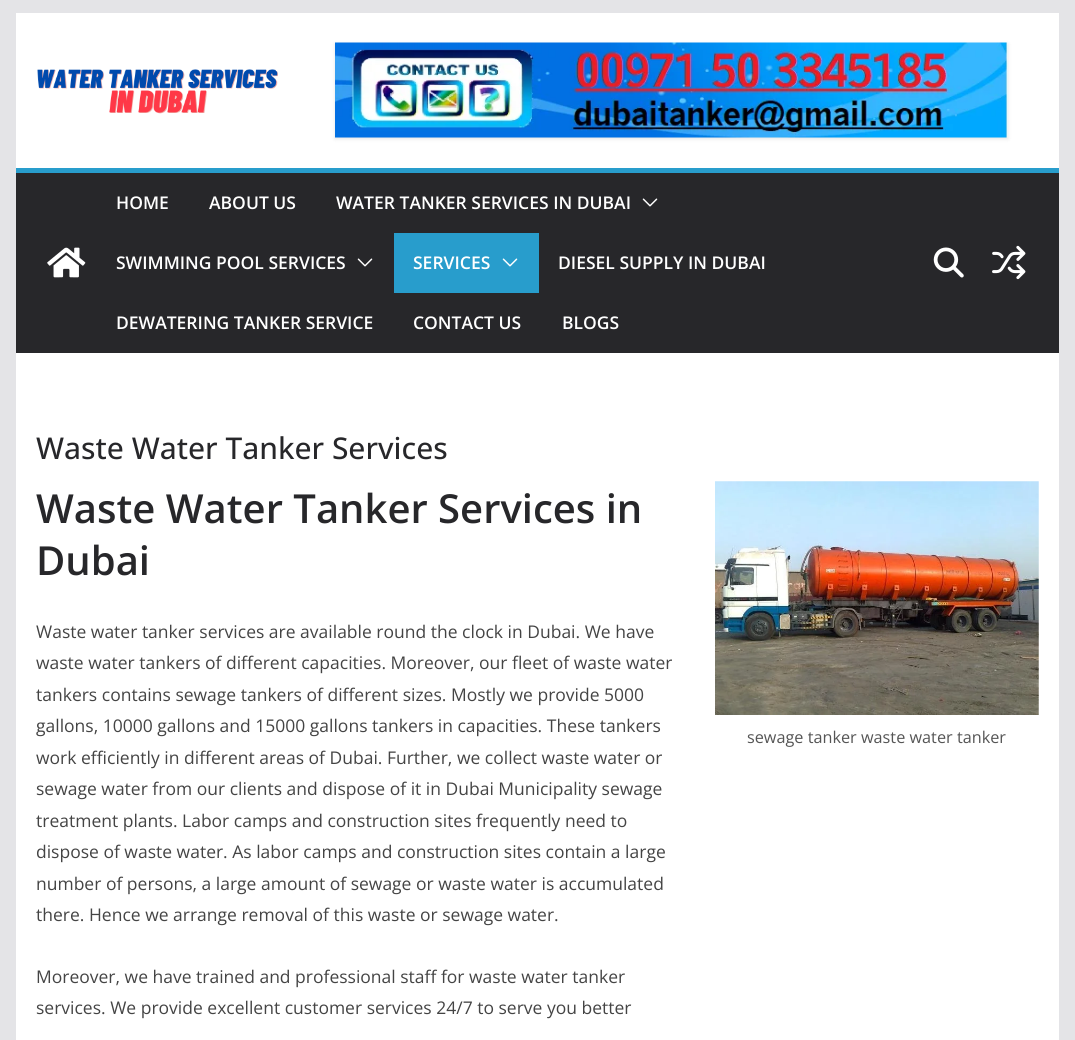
import math
import cairo


def use_color(cr, r, g, b):
  cr.set_source_rgb(r / 255, g / 255, b / 255)

def text(cr, x, y, s, family, size, color, bold=False, italic=False):
  cr.select_font_face(family, cairo.FONT_SLANT_ITALIC if italic else cairo.FONT_SLANT_NORMAL, cairo.FONT_WEIGHT_BOLD if bold else cairo.FONT_WEIGHT_NORMAL)
  cr.set_font_size(size)
  use_color(cr, *color)
  cr.move_to(x, y)
  cr.show_text(s)

def box(cr, x, y, w, h, *color):
  use_color(cr, *color)
  cr.rectangle(x, y, w, h)
  cr.fill()

def round_rect(cr, x, y, w, h, r):
  cr.new_sub_path()
  for i, (u, v) in enumerate([(x + w - r, y + h - r), (x + r, y + h - r), (x + r, y + r), (x + w - r, y + r)]):
    cr.arc(u, v, r, i * math.pi / 2, (i + 1) * math.pi / 2)
  cr.close_path()

def shadow(cr, x, y, w, h, r, blur, alpha):
  cr.push_group_with_content(cairo.CONTENT_ALPHA)
  cr.set_operator(cairo.OPERATOR_SOURCE)
  for i in range(15, -16, -2):
    e = blur * i / 6
    if min(w, h) + 2 * e > 0:
      cr.set_source_rgba(0, 0, 0, alpha * math.erfc((i - 1) / 8.5) / 2)
      round_rect(cr, x - e, y - e, w + 2 * e, h + 2 * e, max(0, min(r + e + blur * .6, min(w, h) / 2 + e)))
      cr.fill()
  cr.mask(cr.pop_group())

def picture(cr, path, x, y, w, h):
  cr.save()
  cr.set_source_surface(cairo.ImageSurface.create_from_png(path), x, y)
  cr.rectangle(x, y, w, h)
  cr.fill()
  cr.restore()

def draw(cr):
  use_color(cr, 228, 228, 231)
  cr.paint()
  box(cr, 16, 13, 1043, 155, 255, 255, 255)
  picture(cr, "img_01.png", 37, 69, 241, 45)
  use_color(cr, 0, 0, 0)
  shadow(cr, 335, 44, 673, 95, 0, 2, 0.1)
  picture(cr, "img_02.png", 335, 42, 673, 96)
  box(cr, 16, 173, 1043, 180, 39, 39, 42)
  box(cr, 16, 168, 1043, 5, 40, 157, 204)
  picture(cr, "img_03.png", 47, 247, 39, 31)
  picture(cr, "img_04.png", 642, 198, 16, 9)
  picture(cr, "img_04.png", 357, 258, 16, 9)
  box(cr, 394, 233, 145, 60, 40, 157, 204)
  picture(cr, "img_05.png", 502, 258, 16, 9)
  picture(cr, "img_06.png", 933, 247, 31, 31)
  picture(cr, "img_07.png", 992, 245, 34, 35)
  box(cr, 16, 353, 1043, 687, 255, 255, 255)
  picture(cr, "img_08.png", 715, 481, 324, 234)
  text(cr, 116, 209, "HOME", "Open Sans SemiBold", 17.5, (255, 255, 255))
  text(cr, 209, 209, "ABOUT US", "Open Sans SemiBold", 17.5, (255, 255, 255))
  text(cr, 336, 209, "WATER TANKER SERVICES IN DUBAI", "Open Sans SemiBold", 17.5, (255, 255, 255))
  text(cr, 116, 269, "SWIMMING POOL SERVICES", "Open Sans SemiBold", 17.5, (255, 255, 255))
  text(cr, 413, 269, "SERVICES", "Open Sans SemiBold", 17.5, (255, 255, 255))
  text(cr, 558, 269, "DIESEL SUPPLY IN DUBAI", "Open Sans SemiBold", 17.5, (255, 255, 255))
  text(cr, 116, 329, "DEWATERING TANKER SERVICE", "Open Sans SemiBold", 17.5, (255, 255, 255))
  text(cr, 413, 329, "CONTACT US", "Open Sans SemiBold", 17.5, (255, 255, 255))
  text(cr, 562, 329, "BLOGS", "Open Sans SemiBold", 17.5, (255, 255, 255))
  text(cr, 36, 459, "Waste Water Tanker Services", "Open Sans Medium", 30, (39, 39, 42))
  text(cr, 36, 523, "Waste Water Tanker Services in", "Open Sans SemiBold", 40, (39, 39, 42))
  text(cr, 36, 575, "Dubai", "Open Sans SemiBold", 40, (39, 39, 42))
  text(cr, 36, 638, "Waste water tanker services are available round the clock in Dubai. We have", "Open Sans", 17.5, (68, 68, 68))
  text(cr, 36, 669, "waste water tankers of different capacities. Moreover, our fleet of waste water", "Open Sans", 17.5, (68, 68, 68))
  text(cr, 36, 701, "tankers contains sewage tankers of different sizes. Mostly we provide 5000", "Open Sans", 17.5, (68, 68, 68))
  text(cr, 36, 732, "gallons, 10000 gallons and 15000 gallons tankers in capacities. These tankers", "Open Sans", 17.5, (68, 68, 68))
  text(cr, 36, 764, "work efficiently in different areas of Dubai. Further, we collect waste water or", "Open Sans", 17.5, (68, 68, 68))
  text(cr, 36, 795, "sewage water from our clients and dispose of it in Dubai Municipality sewage", "Open Sans", 17.5, (68, 68, 68))
  text(cr, 36, 827, "treatment plants. Labor camps and construction sites frequently need to", "Open Sans", 17.5, (68, 68, 68))
  text(cr, 36, 858, "dispose of waste water. As labor camps and construction sites contain a large", "Open Sans", 17.5, (68, 68, 68))
  text(cr, 36, 890, "number of persons, a large amount of sewage or waste water is accumulated", "Open Sans", 17.5, (68, 68, 68))
  text(cr, 36, 921, "there. Hence we arrange removal of this waste or sewage water.", "Open Sans", 17.5, (68, 68, 68))
  text(cr, 36, 983, "Moreover, we have trained and professional staff for waste water tanker", "Open Sans", 17.5, (68, 68, 68))
  text(cr, 36, 1014, "services. We provide excellent customer services 24/7 to serve you better", "Open Sans", 17.5, (68, 68, 68))
  text(cr, 747, 743, "sewage tanker waste water tanker", "Open Sans", 16.25, (85, 85, 85))


surface = cairo.ImageSurface(cairo.FORMAT_RGB24, 1075, 1040)
cr = cairo.Context(surface)
options = cairo.FontOptions()
options.set_hint_metrics(cairo.HINT_METRICS_OFF)
options.set_hint_style(cairo.HINT_STYLE_NONE)
cr.set_font_options(options)
cr.set_miter_limit(4)
draw(cr)
surface.write_to_png("out.png")
